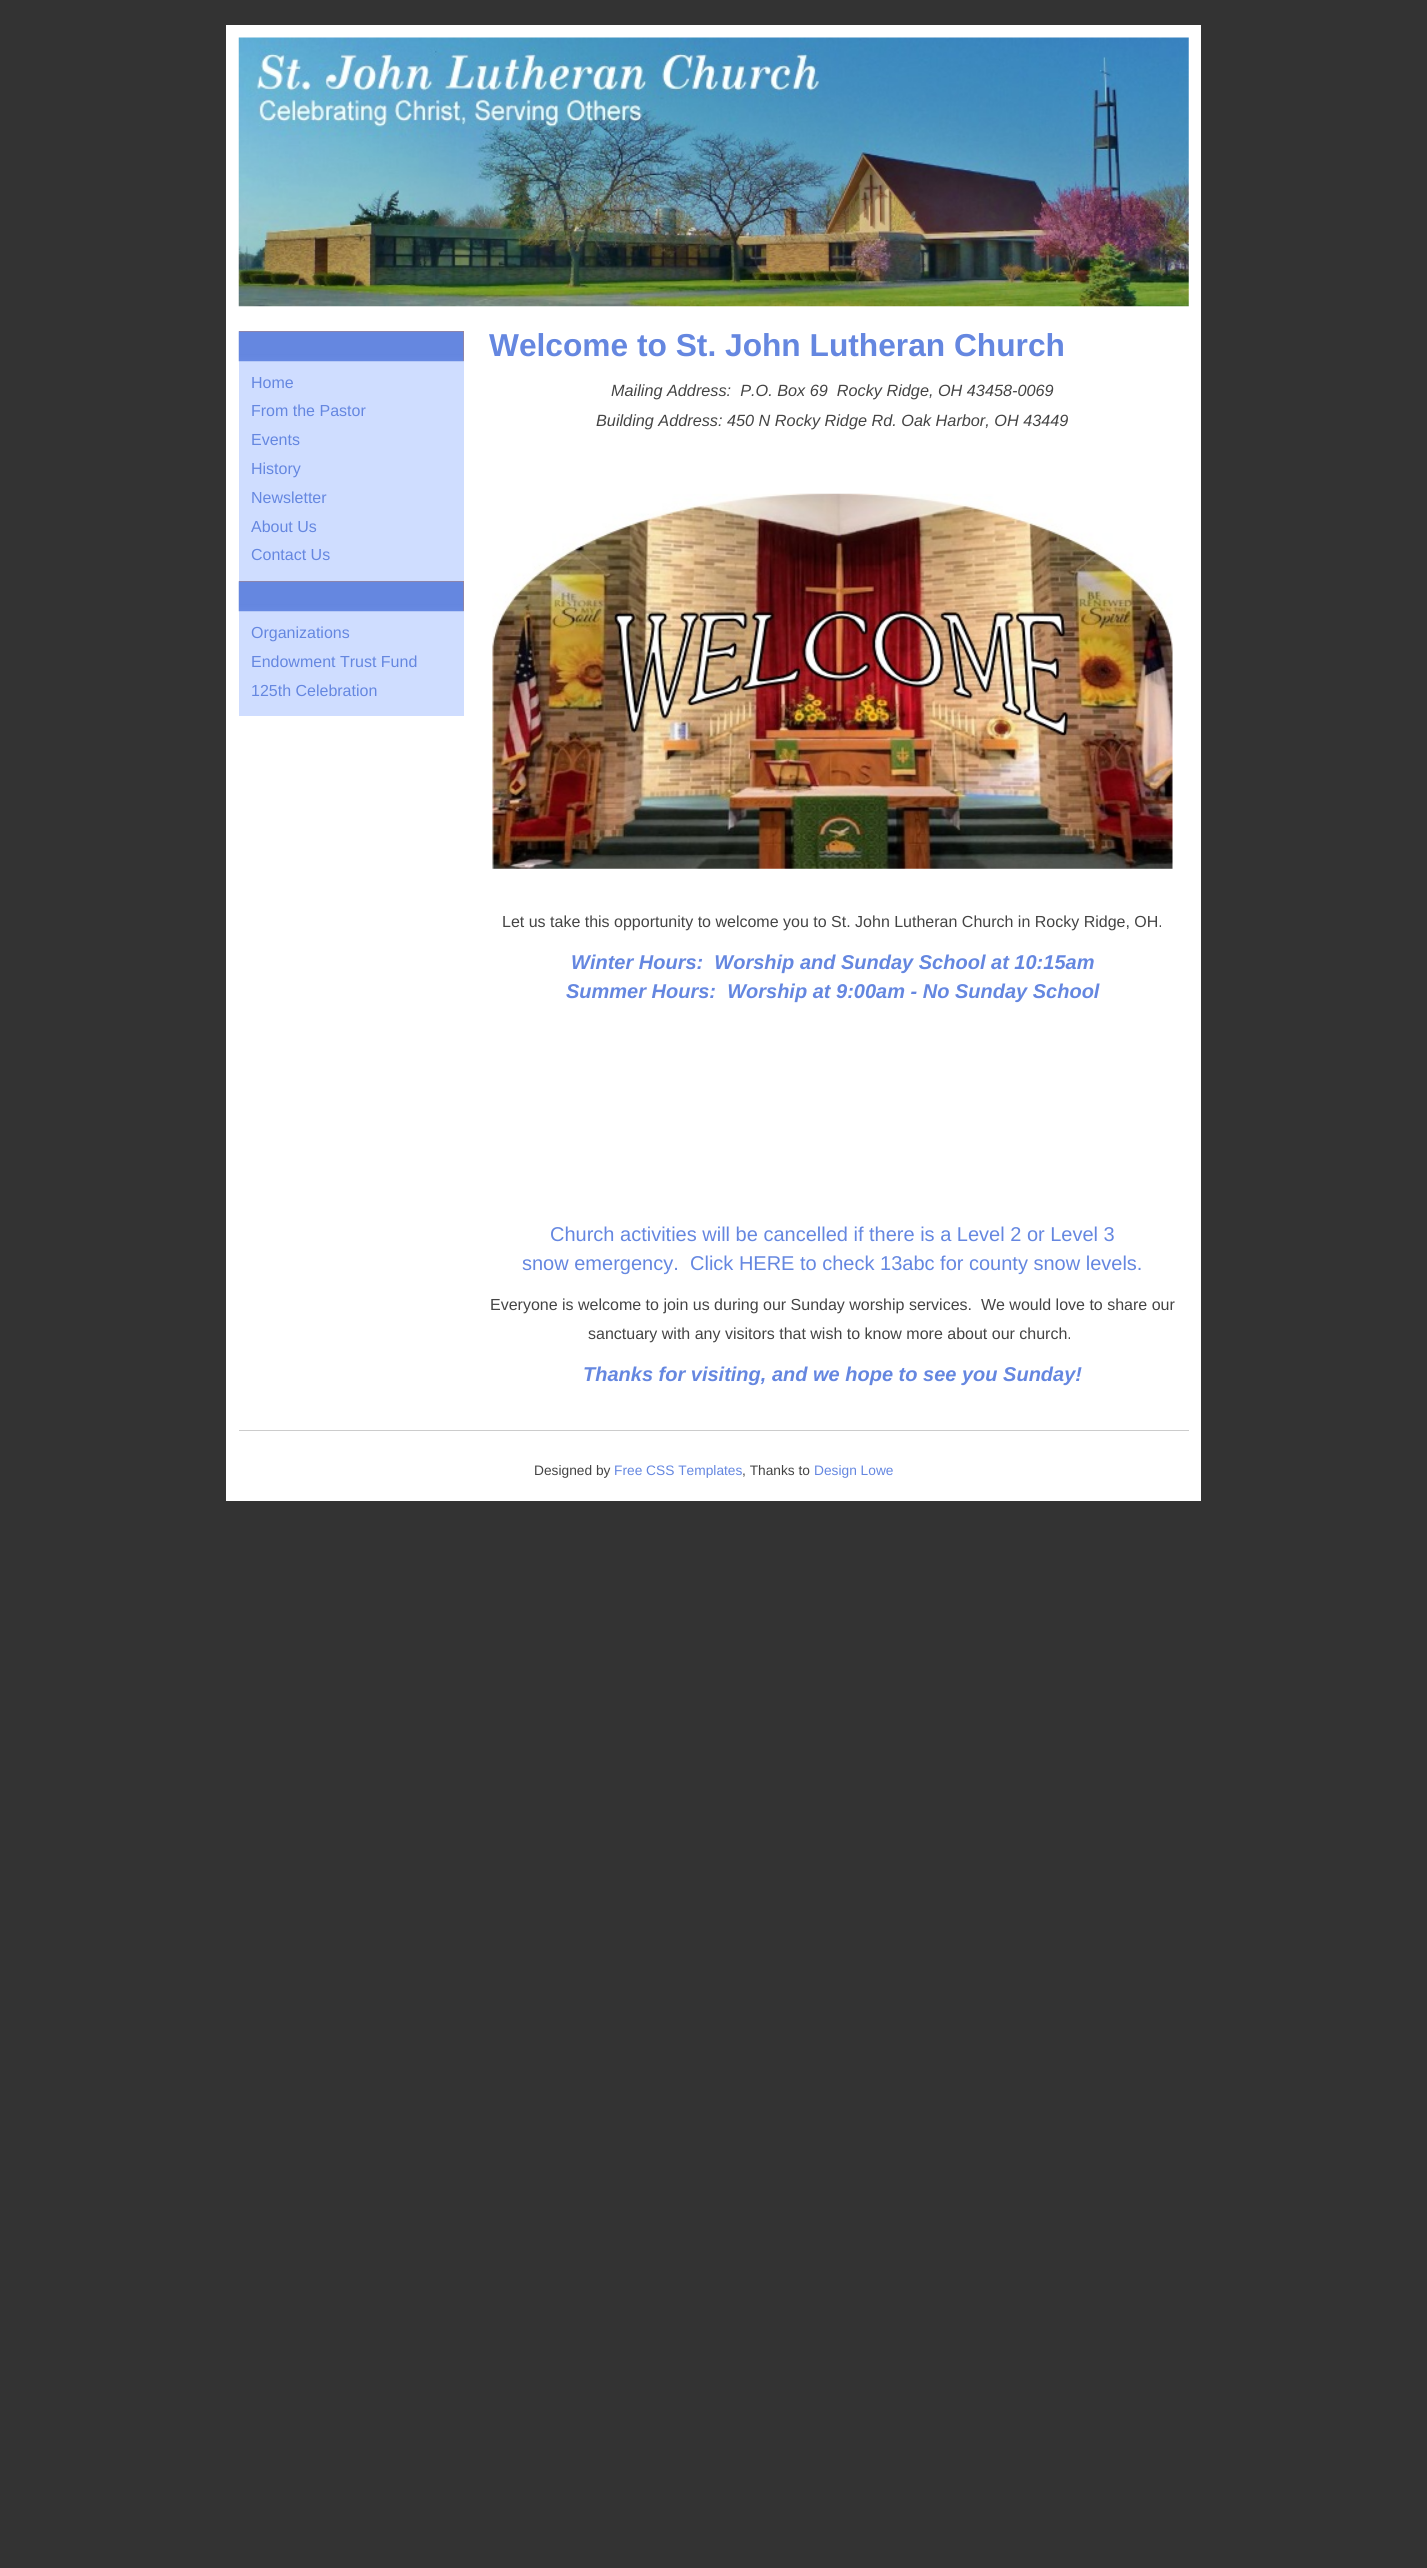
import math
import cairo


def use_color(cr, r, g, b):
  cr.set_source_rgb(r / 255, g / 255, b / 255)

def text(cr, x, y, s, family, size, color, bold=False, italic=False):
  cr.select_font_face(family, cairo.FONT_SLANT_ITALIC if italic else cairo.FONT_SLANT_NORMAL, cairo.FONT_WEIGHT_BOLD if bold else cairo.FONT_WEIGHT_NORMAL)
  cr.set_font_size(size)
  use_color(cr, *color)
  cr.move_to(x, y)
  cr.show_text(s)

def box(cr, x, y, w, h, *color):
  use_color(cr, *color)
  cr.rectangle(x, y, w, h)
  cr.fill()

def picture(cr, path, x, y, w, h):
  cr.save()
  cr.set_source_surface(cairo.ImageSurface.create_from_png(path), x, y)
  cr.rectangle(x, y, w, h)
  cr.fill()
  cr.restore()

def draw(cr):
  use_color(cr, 51, 51, 51)
  cr.paint()
  box(cr, 226, 25, 975, 1476, 255, 255, 255)
  picture(cr, "img_01.png", 238, 37, 951, 270)
  box(cr, 239, 361, 225, 355, 207, 221, 255)
  box(cr, 239, 331, 225, 30, 254, 123, 9)
  picture(cr, "img_02.png", 238, 331, 226, 31)
  box(cr, 239, 581, 225, 30, 254, 123, 9)
  picture(cr, "img_02.png", 238, 581, 226, 31)
  picture(cr, "img_03.png", 492, 493, 681, 376)
  box(cr, 239, 1430, 950, 1, 204, 204, 204)
  text(cr, 251, 388, "Home", "Liberation Sans", 16, (101, 135, 224))
  text(cr, 251, 416, "From the Pastor", "Liberation Sans", 16, (101, 135, 224))
  text(cr, 251, 445, "Events", "Liberation Sans", 16, (101, 135, 224))
  text(cr, 251, 474, "History", "Liberation Sans", 16, (101, 135, 224))
  text(cr, 251, 503, "Newsletter", "Liberation Sans", 16, (101, 135, 224))
  text(cr, 251, 532, "About Us", "Liberation Sans", 16, (101, 135, 224))
  text(cr, 251, 560, "Contact Us", "Liberation Sans", 16, (101, 135, 224))
  text(cr, 251, 638, "Organizations", "Liberation Sans", 16, (101, 135, 224))
  text(cr, 251, 667, "Endowment Trust Fund", "Liberation Sans", 16, (101, 135, 224))
  text(cr, 251, 696, "125th Celebration", "Liberation Sans", 16, (101, 135, 224))
  text(cr, 489, 356, "Welcome to St. John Lutheran Church", "Liberation Sans", 31.7, (101, 135, 224), bold=True)
  text(cr, 611, 396, "Mailing Address:  P.O. Box 69  Rocky Ridge, OH 43458-0069", "Liberation Sans", 16.25, (68, 68, 68), italic=True)
  text(cr, 596, 426, "Building Address: 450 N Rocky Ridge Rd. Oak Harbor, OH 43449", "Liberation Sans", 16.25, (68, 68, 68), italic=True)
  text(cr, 502, 927, "Let us take this opportunity to welcome you to St. John Lutheran Church in Rocky Ridge, OH.", "Liberation Sans", 16, (68, 68, 68))
  text(cr, 571, 969, "Winter Hours:  Worship and Sunday School at 10:15am", "Liberation Sans", 20, (101, 135, 224), bold=True, italic=True)
  text(cr, 566, 998, "Summer Hours:  Worship at 9:00am - No Sunday School", "Liberation Sans", 20, (101, 135, 224), bold=True, italic=True)
  text(cr, 550, 1241, "Church activities will be cancelled if there is a Level 2 or Level 3", "Liberation Sans", 20, (101, 135, 224))
  text(cr, 522, 1270, "snow emergency.", "Liberation Sans", 20, (101, 135, 224))
  text(cr, 690, 1270, "Click HERE to check 13abc for county snow levels.", "Liberation Sans", 20, (101, 135, 224))
  text(cr, 490, 1310, "Everyone is welcome to join us during our Sunday worship services.  We would love to share our", "Liberation Sans", 16, (68, 68, 68))
  text(cr, 588, 1339, "sanctuary with any visitors that wish to know more about our church.", "Liberation Sans", 16, (68, 68, 68))
  text(cr, 583, 1381, "Thanks for visiting, and we hope to see you Sunday!", "Liberation Sans", 20, (101, 135, 224), bold=True, italic=True)
  text(cr, 534, 1475, "Designed by", "Liberation Sans", 13.75, (68, 68, 68))
  text(cr, 614, 1475, "Free CSS Templates", "Liberation Sans", 13.75, (101, 135, 224))
  text(cr, 742, 1475, ", Thanks to", "Liberation Sans", 13.75, (68, 68, 68))
  text(cr, 814, 1475, "Design Lowe", "Liberation Sans", 13.75, (101, 135, 224))


surface = cairo.ImageSurface(cairo.FORMAT_RGB24, 1427, 2568)
cr = cairo.Context(surface)
options = cairo.FontOptions()
options.set_hint_metrics(cairo.HINT_METRICS_OFF)
options.set_hint_style(cairo.HINT_STYLE_NONE)
cr.set_font_options(options)
cr.set_miter_limit(4)
draw(cr)
surface.write_to_png("out.png")
